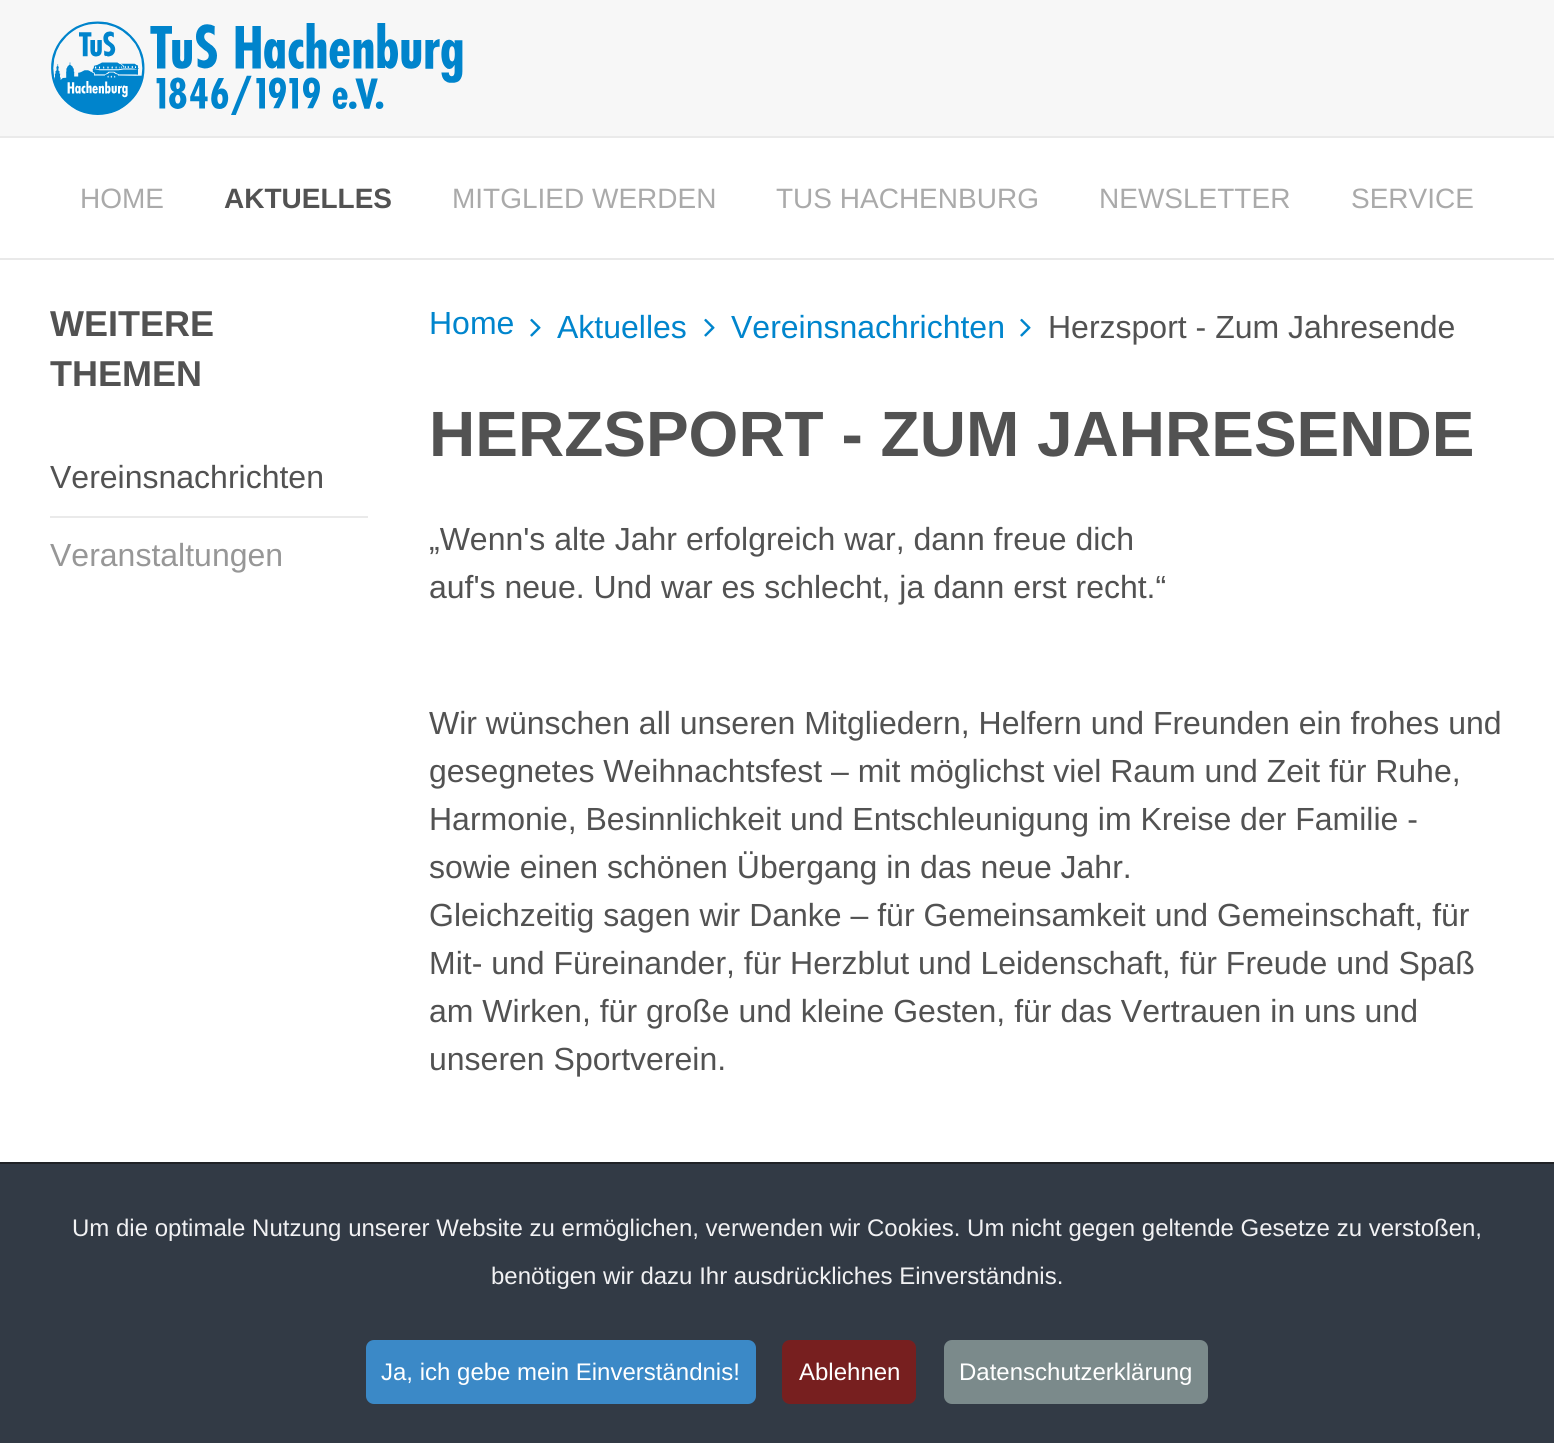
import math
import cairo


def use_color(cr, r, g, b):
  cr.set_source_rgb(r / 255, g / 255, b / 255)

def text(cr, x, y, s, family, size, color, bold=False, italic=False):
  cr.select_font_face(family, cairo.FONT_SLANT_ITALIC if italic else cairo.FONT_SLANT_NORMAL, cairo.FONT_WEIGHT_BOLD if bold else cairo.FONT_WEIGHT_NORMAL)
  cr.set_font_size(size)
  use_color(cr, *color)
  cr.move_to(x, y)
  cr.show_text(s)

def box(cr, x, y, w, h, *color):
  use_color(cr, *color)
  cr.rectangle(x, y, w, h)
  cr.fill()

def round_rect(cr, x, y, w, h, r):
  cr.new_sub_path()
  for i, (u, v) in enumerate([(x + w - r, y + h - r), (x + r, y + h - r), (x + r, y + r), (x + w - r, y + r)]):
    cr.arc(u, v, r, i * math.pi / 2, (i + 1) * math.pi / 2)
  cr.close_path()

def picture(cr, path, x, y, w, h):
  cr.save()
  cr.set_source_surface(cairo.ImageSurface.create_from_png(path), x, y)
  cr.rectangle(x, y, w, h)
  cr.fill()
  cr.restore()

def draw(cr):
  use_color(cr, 247, 247, 247)
  cr.paint()
  picture(cr, "img_01.png", 51, 21, 412, 94)
  box(cr, 0, 138, 1554, 120, 255, 255, 255)
  box(cr, 0, 136, 1554, 2, 234, 234, 234)
  cr.rectangle(-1, 259, 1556, 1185)
  use_color(cr, 233, 233, 233)
  cr.stroke()
  box(cr, 0, 260, 1554, 902, 255, 255, 255)
  box(cr, 50, 516, 318, 2, 234, 234, 234)
  picture(cr, "img_02.png", 530, 318, 11, 19)
  picture(cr, "img_02.png", 704, 318, 11, 19)
  picture(cr, "img_02.png", 1020, 318, 11, 19)
  box(cr, 0, 1164, 1554, 279, 50, 58, 69)
  box(cr, 0, 1162, 1554, 2, 32, 34, 38)
  use_color(cr, 59, 137, 199)
  round_rect(cr, 366, 1340, 390, 64, 8)
  cr.fill()
  use_color(cr, 119, 31, 31)
  round_rect(cr, 782, 1340, 134, 64, 8)
  cr.fill()
  use_color(cr, 123, 138, 139)
  round_rect(cr, 944, 1340, 264, 64, 8)
  cr.fill()
  text(cr, 80, 208, "HOME", "Liberation Sans", 28, (170, 170, 170))
  text(cr, 224, 208, "AKTUELLES", "Liberation Sans", 28, (82, 82, 82), bold=True)
  text(cr, 452, 208, "MITGLIED WERDEN", "Liberation Sans", 28, (170, 170, 170))
  text(cr, 776, 208, "TUS HACHENBURG", "Liberation Sans", 28, (170, 170, 170))
  text(cr, 1099, 208, "NEWSLETTER", "Liberation Sans", 28, (170, 170, 170))
  text(cr, 1351, 208, "SERVICE", "Liberation Sans", 28, (170, 170, 170))
  text(cr, 50, 336, "WEITERE", "Liberation Sans", 36, (82, 82, 82), bold=True)
  text(cr, 50, 386, "THEMEN", "Liberation Sans", 36, (82, 82, 82), bold=True)
  text(cr, 50, 488, "Vereinsnachrichten", "Liberation Sans", 32, (82, 82, 82))
  text(cr, 50, 566, "Veranstaltungen", "Liberation Sans", 32, (151, 151, 151))
  text(cr, 429, 334, "Home", "Liberation Sans", 32, (0, 133, 205))
  text(cr, 557, 338, "Aktuelles", "Liberation Sans", 32, (0, 133, 205))
  text(cr, 731, 338, "Vereinsnachrichten", "Liberation Sans", 32, (0, 133, 205))
  text(cr, 1048, 338, "Herzsport - Zum Jahresende", "Liberation Sans", 32, (82, 82, 82))
  text(cr, 429, 456, "HERZSPORT - ZUM JAHRESENDE", "Liberation Sans", 64, (82, 82, 82), bold=True)
  text(cr, 429, 550, "„Wenn's alte Jahr erfolgreich war, dann freue dich", "Liberation Sans", 32, (82, 82, 82))
  text(cr, 429, 598, "auf's neue. Und war es schlecht, ja dann erst recht.“", "Liberation Sans", 32, (82, 82, 82))
  text(cr, 429, 734, "Wir wünschen all unseren Mitgliedern, Helfern und Freunden ein frohes und", "Liberation Sans", 32, (82, 82, 82))
  text(cr, 429, 782, "gesegnetes Weihnachtsfest – mit möglichst viel Raum und Zeit für Ruhe,", "Liberation Sans", 32, (82, 82, 82))
  text(cr, 429, 830, "Harmonie, Besinnlichkeit und Entschleunigung im Kreise der Familie -", "Liberation Sans", 32, (82, 82, 82))
  text(cr, 429, 878, "sowie einen schönen Übergang in das neue Jahr.", "Liberation Sans", 32, (82, 82, 82))
  text(cr, 429, 926, "Gleichzeitig sagen wir Danke – für Gemeinsamkeit und Gemeinschaft, für", "Liberation Sans", 32, (82, 82, 82))
  text(cr, 429, 974, "Mit- und Füreinander, für Herzblut und Leidenschaft, für Freude und Spaß", "Liberation Sans", 32, (82, 82, 82))
  text(cr, 429, 1022, "am Wirken, für große und kleine Gesten, für das Vertrauen in uns und", "Liberation Sans", 32, (82, 82, 82))
  text(cr, 429, 1070, "unseren Sportverein.", "Liberation Sans", 32, (82, 82, 82))
  text(cr, 72, 1236, "Um die optimale Nutzung unserer Website zu ermöglichen, verwenden wir Cookies. Um nicht gegen geltende Gesetze zu verstoßen,", "Liberation Sans", 24, (241, 241, 243))
  text(cr, 491, 1284, "benötigen wir dazu Ihr ausdrückliches Einverständnis.", "Liberation Sans", 24, (241, 241, 243))
  text(cr, 381, 1380, "Ja, ich gebe mein Einverständnis!", "Liberation Sans", 24, (255, 255, 255))
  text(cr, 799, 1380, "Ablehnen", "Liberation Sans", 24, (255, 255, 255))
  text(cr, 959, 1380, "Datenschutzerklärung", "Liberation Sans", 24, (255, 255, 255))


surface = cairo.ImageSurface(cairo.FORMAT_RGB24, 1554, 1443)
cr = cairo.Context(surface)
options = cairo.FontOptions()
options.set_hint_metrics(cairo.HINT_METRICS_OFF)
options.set_hint_style(cairo.HINT_STYLE_NONE)
cr.set_font_options(options)
cr.set_miter_limit(4)
draw(cr)
surface.write_to_png("out.png")
